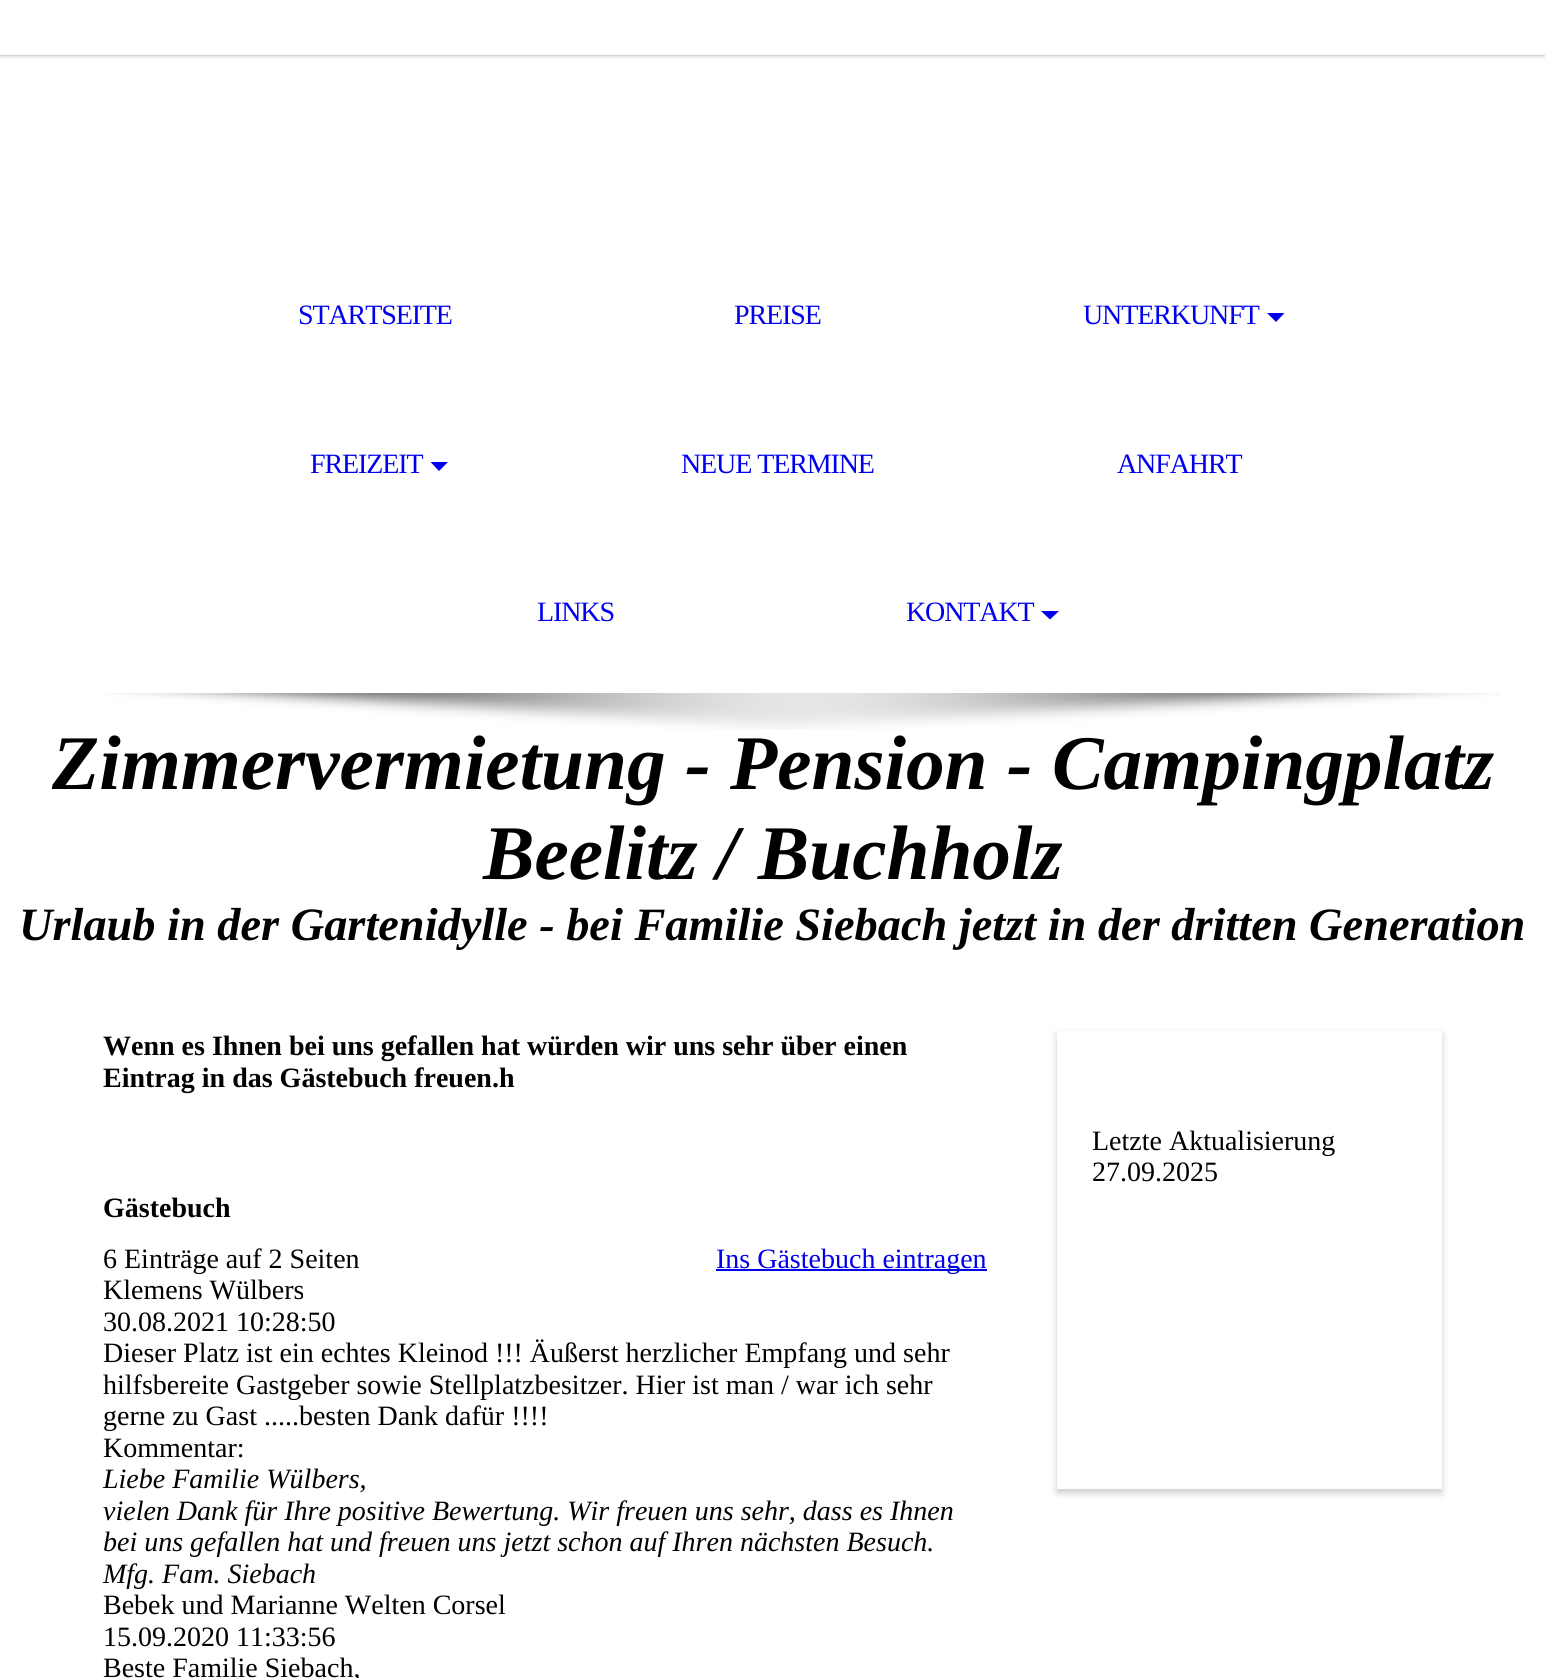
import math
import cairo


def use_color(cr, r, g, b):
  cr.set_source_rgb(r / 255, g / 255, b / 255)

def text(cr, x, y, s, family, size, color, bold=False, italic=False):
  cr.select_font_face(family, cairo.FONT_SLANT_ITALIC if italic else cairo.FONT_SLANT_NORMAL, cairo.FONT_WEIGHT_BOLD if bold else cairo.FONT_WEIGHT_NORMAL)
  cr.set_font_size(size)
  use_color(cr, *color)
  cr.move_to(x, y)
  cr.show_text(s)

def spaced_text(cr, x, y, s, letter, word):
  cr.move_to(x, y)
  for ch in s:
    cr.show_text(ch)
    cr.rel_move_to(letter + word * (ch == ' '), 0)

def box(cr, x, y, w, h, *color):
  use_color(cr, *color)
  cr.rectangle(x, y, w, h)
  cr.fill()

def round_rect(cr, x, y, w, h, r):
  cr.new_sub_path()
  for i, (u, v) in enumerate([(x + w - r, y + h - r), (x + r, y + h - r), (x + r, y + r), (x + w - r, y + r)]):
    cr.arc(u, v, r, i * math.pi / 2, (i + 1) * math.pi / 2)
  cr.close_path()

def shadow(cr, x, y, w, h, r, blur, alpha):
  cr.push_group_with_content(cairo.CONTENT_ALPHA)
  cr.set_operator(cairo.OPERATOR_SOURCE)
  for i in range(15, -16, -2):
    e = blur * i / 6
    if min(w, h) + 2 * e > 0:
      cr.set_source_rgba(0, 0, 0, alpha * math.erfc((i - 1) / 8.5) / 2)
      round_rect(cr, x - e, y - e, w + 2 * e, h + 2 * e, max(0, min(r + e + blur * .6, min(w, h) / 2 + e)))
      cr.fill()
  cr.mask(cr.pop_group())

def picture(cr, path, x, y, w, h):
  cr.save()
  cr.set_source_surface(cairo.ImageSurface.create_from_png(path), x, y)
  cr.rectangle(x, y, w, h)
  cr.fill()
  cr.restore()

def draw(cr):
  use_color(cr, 255, 255, 255)
  cr.paint()
  cr.save()
  cr.rectangle(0, 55, 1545, 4)
  cr.clip()
  use_color(cr, 102, 102, 102)
  shadow(cr, 0, 0, 1545, 54, 0, 2.5, 1)
  cr.restore()
  box(cr, 0, 54, 1545, 1, 255, 255, 255)
  use_color(cr, 0, 0, 238)
  cr.new_path()
  cr.move_to(1267, 313)
  cr.line_to(1284.5, 313)
  cr.line_to(1276, 322)
  cr.close_path()
  cr.fill()
  cr.new_path()
  cr.move_to(430.5, 462)
  cr.line_to(448, 462)
  cr.line_to(439, 471)
  cr.close_path()
  cr.fill()
  cr.new_path()
  cr.move_to(1041, 611)
  cr.line_to(1059, 611)
  cr.line_to(1050, 619.5)
  cr.close_path()
  cr.fill()
  picture(cr, "img_01.png", 103, 693, 1397, 37)
  box(cr, 716, 1269, 271, 2, 0, 0, 238)
  cr.save()
  cr.set_fill_rule(cairo.FILL_RULE_EVEN_ODD)
  cr.new_path()
  cr.move_to(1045, 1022)
  cr.line_to(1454, 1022)
  cr.line_to(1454, 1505)
  cr.line_to(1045, 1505)
  cr.close_path()
  cr.move_to(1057, 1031)
  cr.line_to(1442, 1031)
  cr.line_to(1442, 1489)
  cr.line_to(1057, 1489)
  cr.close_path()
  cr.clip()
  use_color(cr, 204, 204, 204)
  shadow(cr, 1057, 1034, 385, 459, 0, 3.5, 1)
  cr.restore()
  cr.select_font_face("Liberation Serif")
  cr.set_font_size(28)
  spaced_text(cr, 298, 324, "STARTSEITE", -1.1, 0)
  spaced_text(cr, 734, 324, "PREISE", -1.1, 0)
  spaced_text(cr, 1083, 324, "UNTERKUNFT", -1.1, 0)
  spaced_text(cr, 310, 473, "FREIZEIT", -1.1, 0)
  spaced_text(cr, 681, 473, "NEUE TERMINE", -1.1, 0)
  spaced_text(cr, 1117, 473, "ANFAHRT", -1.1, 0)
  spaced_text(cr, 537, 621, "LINKS", -1.1, 0)
  spaced_text(cr, 906, 621, "KONTAKT", -1.1, 0)
  text(cr, 52, 789, "Zimmervermietung - Pension - Campingplatz", "Liberation Serif", 77.25, (0, 0, 0), bold=True, italic=True)
  text(cr, 483, 879, "Beelitz / Buchholz", "Liberation Serif", 77.25, (0, 0, 0), bold=True, italic=True)
  text(cr, 19, 940, "Urlaub in der Gartenidylle - bei Familie Siebach jetzt in der dritten Generation", "Liberation Serif", 46.35, (0, 0, 0), bold=True, italic=True)
  text(cr, 103, 1055, "Wenn es Ihnen bei uns gefallen hat würden wir uns sehr über einen", "Liberation Serif", 28, (0, 0, 0), bold=True)
  text(cr, 103, 1087, "Eintrag in das Gästebuch freuen.h", "Liberation Serif", 28, (0, 0, 0), bold=True)
  text(cr, 103, 1217, "Gästebuch", "Liberation Serif", 28, (0, 0, 0), bold=True)
  text(cr, 103, 1268, "6 Einträge auf 2 Seiten", "Liberation Serif", 28, (0, 0, 0))
  text(cr, 716, 1268, "Ins Gästebuch eintragen", "Liberation Serif", 28, (0, 0, 238))
  text(cr, 103, 1299, "Klemens Wülbers", "Liberation Serif", 28, (0, 0, 0))
  text(cr, 103, 1331, "30.08.2021 10:28:50", "Liberation Serif", 28, (0, 0, 0))
  text(cr, 103, 1362, "Dieser Platz ist ein echtes Kleinod !!! Äußerst herzlicher Empfang und sehr", "Liberation Serif", 28, (0, 0, 0))
  text(cr, 103, 1394, "hilfsbereite Gastgeber sowie Stellplatzbesitzer. Hier ist man / war ich sehr", "Liberation Serif", 28, (0, 0, 0))
  text(cr, 103, 1425, "gerne zu Gast .....besten Dank dafür !!!!", "Liberation Serif", 28, (0, 0, 0))
  text(cr, 103, 1457, "Kommentar:", "Liberation Serif", 28, (0, 0, 0))
  text(cr, 103, 1488, "Liebe Familie Wülbers,", "Liberation Serif", 28, (0, 0, 0), italic=True)
  text(cr, 103, 1520, "vielen Dank für Ihre positive Bewertung. Wir freuen uns sehr, dass es Ihnen", "Liberation Serif", 28, (0, 0, 0), italic=True)
  text(cr, 103, 1551, "bei uns gefallen hat und freuen uns jetzt schon auf Ihren nächsten Besuch.", "Liberation Serif", 28, (0, 0, 0), italic=True)
  text(cr, 103, 1583, "Mfg. Fam. Siebach", "Liberation Serif", 28, (0, 0, 0), italic=True)
  text(cr, 103, 1614, "Bebek und Marianne Welten Corsel", "Liberation Serif", 28, (0, 0, 0))
  text(cr, 103, 1646, "15.09.2020 11:33:56", "Liberation Serif", 28, (0, 0, 0))
  text(cr, 103, 1677, "Beste Familie Siebach,", "Liberation Serif", 28, (0, 0, 0))
  text(cr, 1092, 1150, "Letzte Aktualisierung", "Liberation Serif", 28, (0, 0, 0))
  text(cr, 1092, 1181, "27.09.2025", "Liberation Serif", 28, (0, 0, 0))


surface = cairo.ImageSurface(cairo.FORMAT_RGB24, 1545, 1678)
cr = cairo.Context(surface)
options = cairo.FontOptions()
options.set_hint_metrics(cairo.HINT_METRICS_OFF)
options.set_hint_style(cairo.HINT_STYLE_NONE)
cr.set_font_options(options)
cr.set_miter_limit(4)
draw(cr)
surface.write_to_png("out.png")
